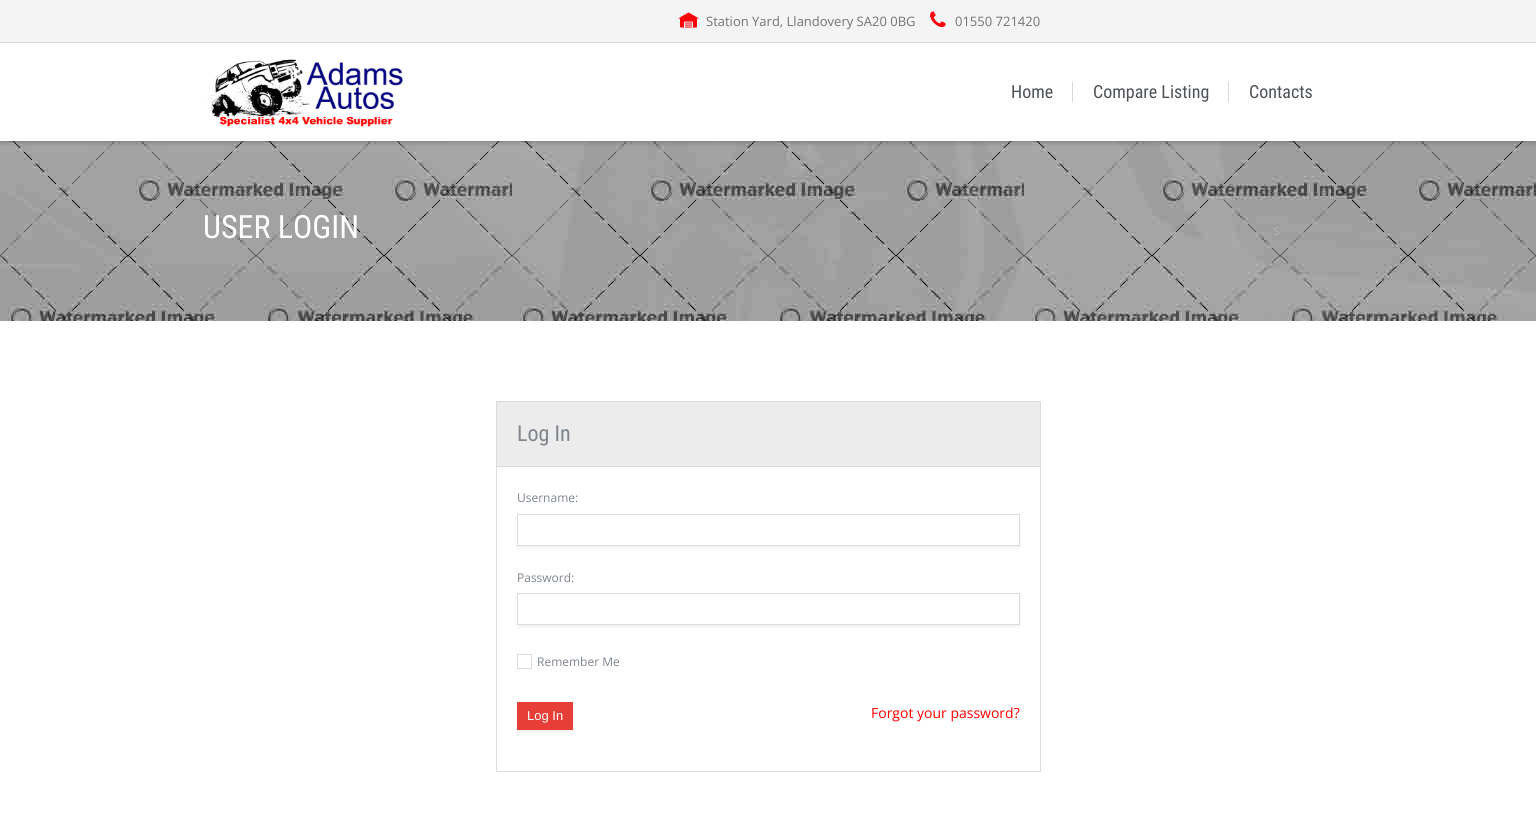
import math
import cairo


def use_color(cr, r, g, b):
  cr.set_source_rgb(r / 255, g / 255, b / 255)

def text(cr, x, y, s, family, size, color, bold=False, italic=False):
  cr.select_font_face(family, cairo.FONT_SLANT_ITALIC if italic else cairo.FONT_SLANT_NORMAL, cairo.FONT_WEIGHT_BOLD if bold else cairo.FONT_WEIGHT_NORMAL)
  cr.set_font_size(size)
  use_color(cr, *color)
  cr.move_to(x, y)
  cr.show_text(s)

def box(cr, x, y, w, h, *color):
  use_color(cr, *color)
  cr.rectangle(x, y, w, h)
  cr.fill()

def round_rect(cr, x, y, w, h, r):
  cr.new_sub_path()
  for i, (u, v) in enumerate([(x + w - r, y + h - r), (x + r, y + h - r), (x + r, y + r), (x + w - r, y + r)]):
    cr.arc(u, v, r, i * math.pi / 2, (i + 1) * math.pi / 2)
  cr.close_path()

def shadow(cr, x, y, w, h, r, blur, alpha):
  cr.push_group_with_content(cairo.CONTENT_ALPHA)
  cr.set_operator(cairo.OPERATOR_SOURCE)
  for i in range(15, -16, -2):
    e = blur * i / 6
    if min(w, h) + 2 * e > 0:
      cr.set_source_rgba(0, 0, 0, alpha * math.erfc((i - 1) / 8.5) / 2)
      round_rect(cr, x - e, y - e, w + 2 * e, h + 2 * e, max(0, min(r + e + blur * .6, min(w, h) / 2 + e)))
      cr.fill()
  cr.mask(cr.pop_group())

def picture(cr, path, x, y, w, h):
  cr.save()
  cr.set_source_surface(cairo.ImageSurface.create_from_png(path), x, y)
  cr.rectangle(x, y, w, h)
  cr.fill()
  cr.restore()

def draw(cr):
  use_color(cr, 255, 255, 255)
  cr.paint()
  picture(cr, "img_04.png", 0, 141, 1536, 180)
  cr.save()
  cr.rectangle(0, 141, 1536, 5)
  cr.clip()
  use_color(cr, 0, 0, 0)
  shadow(cr, 0, 45, 1536, 98, 0, 2, 0.2)
  cr.restore()
  box(cr, 0, 0, 1536, 42, 244, 244, 244)
  box(cr, 0, 42, 1536, 1, 220, 220, 220)
  picture(cr, "img_01.png", 678, 12, 21, 16)
  picture(cr, "img_02.png", 930, 11, 16, 17)
  picture(cr, "img_03.png", 205, 59, 198, 68)
  box(cr, 1072, 82, 1, 20, 217, 217, 217)
  box(cr, 1228, 82, 1, 20, 217, 217, 217)
  cr.rectangle(496.5, 401.5, 544, 370)
  use_color(cr, 221, 220, 220)
  cr.set_line_width(1)
  cr.stroke()
  box(cr, 497, 402, 543, 64, 236, 236, 236)
  box(cr, 497, 466, 543, 1, 221, 220, 220)
  cr.save()
  cr.set_fill_rule(cairo.FILL_RULE_EVEN_ODD)
  cr.new_path()
  cr.move_to(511, 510)
  cr.line_to(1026, 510)
  cr.line_to(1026, 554)
  cr.line_to(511, 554)
  cr.close_path()
  cr.move_to(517, 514)
  cr.line_to(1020, 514)
  cr.line_to(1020, 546)
  cr.line_to(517, 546)
  cr.close_path()
  cr.clip()
  use_color(cr, 100, 100, 100)
  shadow(cr, 517, 516, 503, 32, 0, 1.5, 0.1)
  cr.restore()
  cr.rectangle(517.5, 514.5, 502, 31)
  cr.stroke()
  cr.save()
  cr.set_fill_rule(cairo.FILL_RULE_EVEN_ODD)
  cr.new_path()
  cr.move_to(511, 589)
  cr.line_to(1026, 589)
  cr.line_to(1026, 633)
  cr.line_to(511, 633)
  cr.close_path()
  cr.move_to(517, 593)
  cr.line_to(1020, 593)
  cr.line_to(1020, 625)
  cr.line_to(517, 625)
  cr.close_path()
  cr.clip()
  use_color(cr, 100, 100, 100)
  shadow(cr, 517, 595, 503, 32, 0, 1.5, 0.1)
  cr.restore()
  cr.rectangle(517.5, 593.5, 502, 31)
  cr.stroke()
  cr.rectangle(517.5, 654.5, 14, 14)
  cr.stroke()
  use_color(cr, 100, 100, 100)
  shadow(cr, 517, 704, 56, 28, 0, 1.5, 0.1)
  box(cr, 517, 702, 56, 28, 231, 63, 55)
  text(cr, 706, 26, "Station Yard, Llandovery SA20 0BG", "Open Sans", 13, (117, 115, 115))
  text(cr, 955, 26, "01550 721420", "Open Sans", 13, (117, 115, 115))
  text(cr, 1011, 98, "Home", "Roboto Condensed", 18, (78, 82, 86))
  text(cr, 1093, 98, "Compare Listing", "Roboto Condensed", 18, (78, 82, 86))
  text(cr, 1249, 98, "Contacts", "Roboto Condensed", 18, (78, 82, 86))
  text(cr, 203, 238, "USER LOGIN", "Roboto Condensed", 32, (255, 255, 255))
  text(cr, 1273, 235, "s", "Open Sans", 14, (176, 176, 176))
  text(cr, 517, 441, "Log In", "Roboto Condensed", 22, (127, 133, 140))
  text(cr, 517, 502, "Username:", "Open Sans", 12, (127, 133, 140))
  text(cr, 517, 582, "Password:", "Open Sans", 12, (127, 133, 140))
  text(cr, 537, 666, "Remember Me", "Open Sans", 12, (127, 133, 140))
  text(cr, 527, 720, "Log In", "Liberation Sans", 13, (255, 255, 255))
  text(cr, 871, 718, "Forgot your password?", "Open Sans", 14, (255, 0, 0))


surface = cairo.ImageSurface(cairo.FORMAT_RGB24, 1536, 817)
cr = cairo.Context(surface)
options = cairo.FontOptions()
options.set_hint_metrics(cairo.HINT_METRICS_OFF)
options.set_hint_style(cairo.HINT_STYLE_NONE)
cr.set_font_options(options)
cr.set_miter_limit(4)
draw(cr)
surface.write_to_png("out.png")
